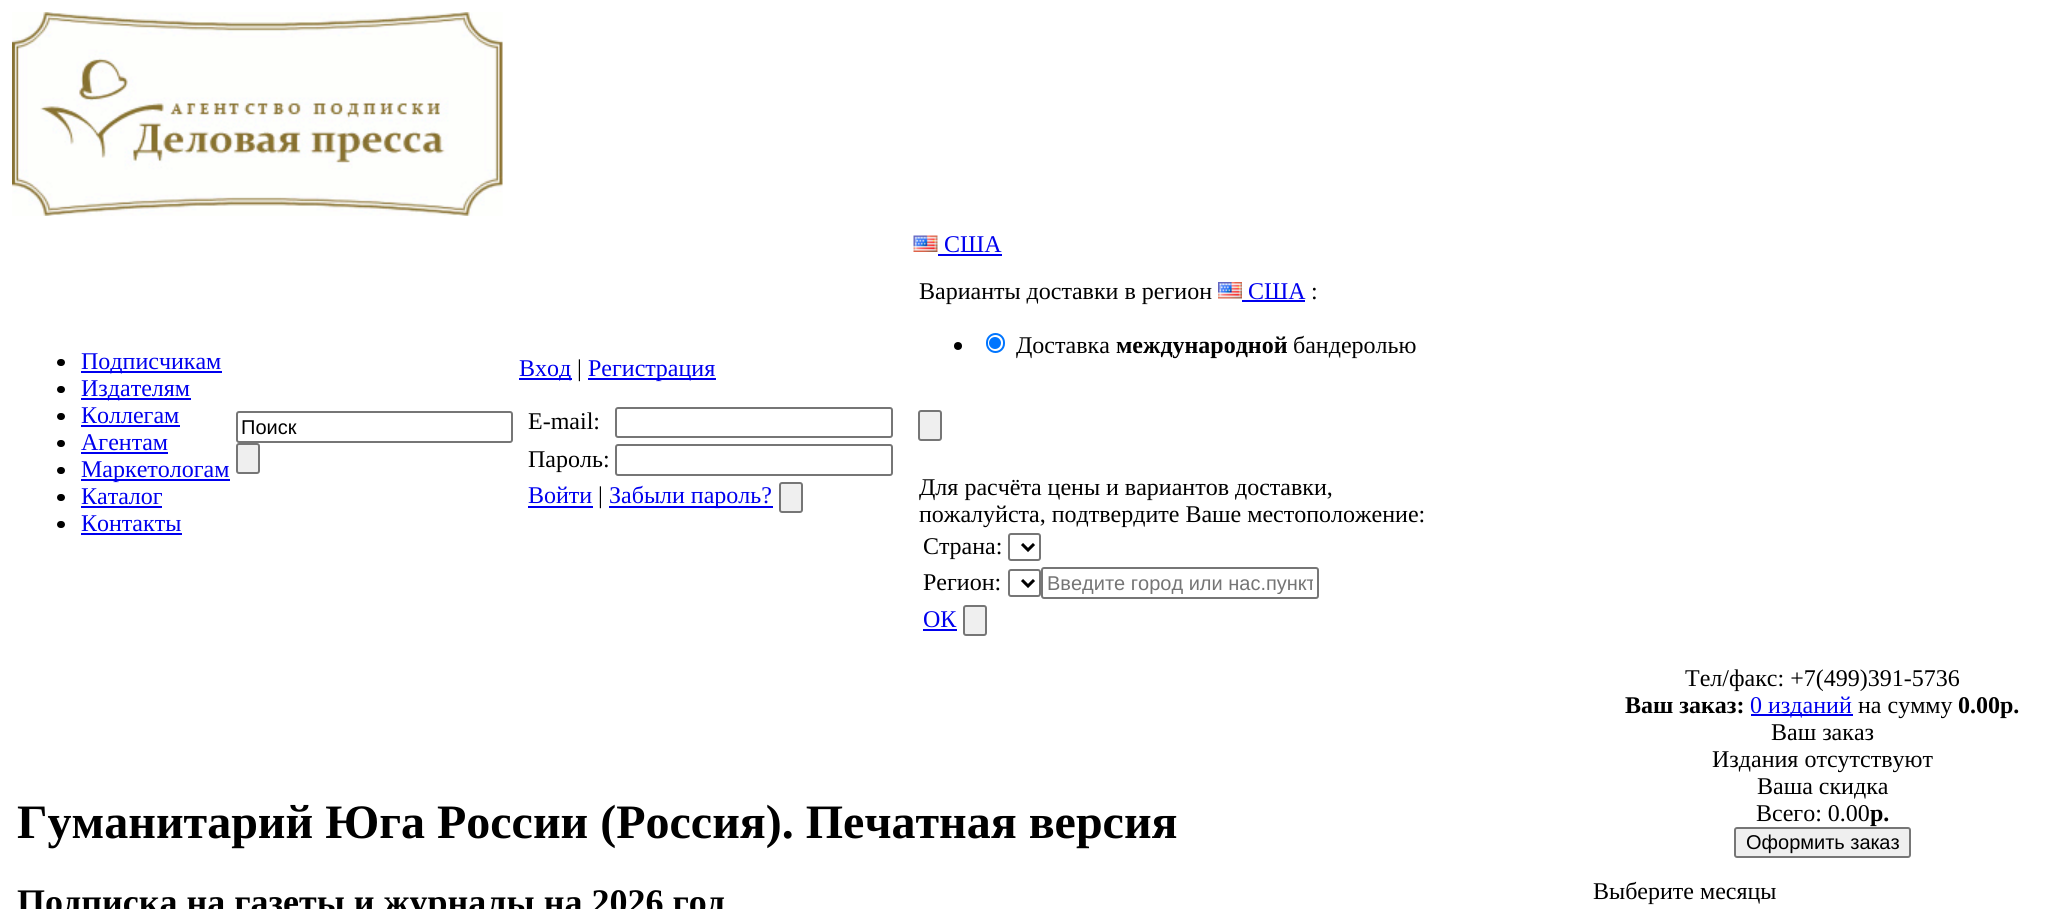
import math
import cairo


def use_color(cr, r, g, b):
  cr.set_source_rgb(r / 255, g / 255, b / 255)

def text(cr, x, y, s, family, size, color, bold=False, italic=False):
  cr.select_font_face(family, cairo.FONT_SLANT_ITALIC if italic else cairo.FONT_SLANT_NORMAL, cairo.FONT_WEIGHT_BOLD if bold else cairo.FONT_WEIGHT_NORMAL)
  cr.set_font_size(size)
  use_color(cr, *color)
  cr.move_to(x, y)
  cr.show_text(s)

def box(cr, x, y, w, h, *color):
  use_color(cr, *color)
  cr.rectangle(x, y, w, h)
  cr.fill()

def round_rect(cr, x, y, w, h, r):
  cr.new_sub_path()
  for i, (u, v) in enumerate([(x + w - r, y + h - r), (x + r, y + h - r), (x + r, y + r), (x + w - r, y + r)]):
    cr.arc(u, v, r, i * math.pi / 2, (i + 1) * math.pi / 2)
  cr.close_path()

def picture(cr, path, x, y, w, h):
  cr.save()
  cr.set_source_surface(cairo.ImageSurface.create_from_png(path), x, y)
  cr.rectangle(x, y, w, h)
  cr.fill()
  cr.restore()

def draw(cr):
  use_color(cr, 255, 255, 255)
  cr.paint()
  picture(cr, "img_01.png", 12, 12, 491, 204)
  use_color(cr, 0, 0, 0)
  round_rect(cr, 57, 359, 8, 7, 3.5)
  cr.fill()
  box(cr, 81, 371, 141, 2, 0, 0, 238)
  use_color(cr, 0, 0, 0)
  round_rect(cr, 57, 386, 8, 7, 3.5)
  cr.fill()
  box(cr, 81, 398, 110, 2, 0, 0, 238)
  use_color(cr, 0, 0, 0)
  round_rect(cr, 57, 413, 8, 7, 3.5)
  cr.fill()
  box(cr, 81, 425, 99, 2, 0, 0, 238)
  use_color(cr, 0, 0, 0)
  round_rect(cr, 57, 440, 8, 7, 3.5)
  cr.fill()
  box(cr, 81, 452, 87, 2, 0, 0, 238)
  use_color(cr, 0, 0, 0)
  round_rect(cr, 57, 467, 8, 7, 3.5)
  cr.fill()
  box(cr, 81, 479, 149, 2, 0, 0, 238)
  use_color(cr, 0, 0, 0)
  round_rect(cr, 57, 494, 8, 7, 3.5)
  cr.fill()
  box(cr, 81, 506, 81, 2, 0, 0, 238)
  use_color(cr, 0, 0, 0)
  round_rect(cr, 57, 521, 8, 7, 3.5)
  cr.fill()
  box(cr, 81, 533, 101, 2, 0, 0, 238)
  round_rect(cr, 237, 412, 275, 30, 2)
  use_color(cr, 118, 118, 118)
  cr.stroke()
  use_color(cr, 239, 239, 239)
  round_rect(cr, 237, 444, 22, 29, 2)
  cr.fill_preserve()
  use_color(cr, 118, 118, 118)
  cr.stroke()
  box(cr, 519, 378, 53, 2, 0, 0, 238)
  box(cr, 588, 378, 128, 2, 0, 0, 238)
  round_rect(cr, 616, 408, 276, 29, 2)
  use_color(cr, 118, 118, 118)
  cr.stroke()
  round_rect(cr, 616, 445, 276, 30, 2)
  cr.stroke()
  box(cr, 528, 506, 65, 2, 0, 0, 238)
  box(cr, 609, 506, 164, 2, 0, 0, 238)
  use_color(cr, 239, 239, 239)
  round_rect(cr, 780, 483, 22, 29, 2)
  cr.fill_preserve()
  use_color(cr, 118, 118, 118)
  cr.stroke()
  picture(cr, "img_02.png", 913, 235, 25, 17)
  box(cr, 938, 254, 64, 2, 0, 0, 238)
  picture(cr, "img_03.png", 1218, 282, 24, 17)
  box(cr, 1242, 300, 63, 2, 0, 0, 238)
  use_color(cr, 0, 0, 0)
  cr.arc(958, 346, 4, 0, 2 * math.pi)
  cr.fill()
  round_rect(cr, 987, 334, 17, 18, 8.5)
  use_color(cr, 0, 117, 255)
  cr.stroke()
  cr.arc(995, 343, 6, 0, 2 * math.pi)
  cr.fill()
  use_color(cr, 239, 239, 239)
  round_rect(cr, 919, 411, 22, 29, 2)
  cr.fill_preserve()
  use_color(cr, 118, 118, 118)
  cr.stroke()
  round_rect(cr, 1009, 534, 31, 26, 2)
  cr.stroke()
  cr.new_path()
  cr.move_to(1022, 544)
  cr.line_to(1028, 550)
  cr.line_to(1034, 544)
  use_color(cr, 0, 0, 0)
  cr.set_line_width(3)
  cr.stroke()
  round_rect(cr, 1009, 570, 31, 26, 2)
  use_color(cr, 118, 118, 118)
  cr.set_line_width(2)
  cr.stroke()
  cr.new_path()
  cr.move_to(1022, 580)
  cr.line_to(1028, 586)
  cr.line_to(1034, 580)
  use_color(cr, 0, 0, 0)
  cr.set_line_width(3)
  cr.stroke()
  round_rect(cr, 1042, 568, 276, 30, 2)
  use_color(cr, 118, 118, 118)
  cr.set_line_width(2)
  cr.stroke()
  box(cr, 923, 629, 34, 2, 0, 0, 238)
  use_color(cr, 239, 239, 239)
  round_rect(cr, 964, 606, 22, 29, 2)
  cr.fill_preserve()
  use_color(cr, 118, 118, 118)
  cr.stroke()
  box(cr, 1751, 714, 102, 2, 0, 0, 238)
  use_color(cr, 239, 239, 239)
  round_rect(cr, 1735, 828, 175, 29, 2)
  cr.fill_preserve()
  use_color(cr, 118, 118, 118)
  cr.stroke()
  text(cr, 81, 369, "Подписчикам", "Liberation Serif", 24, (0, 0, 238))
  text(cr, 81, 396, "Издателям", "Liberation Serif", 24, (0, 0, 238))
  text(cr, 81, 423, "Коллегам", "Liberation Serif", 24, (0, 0, 238))
  text(cr, 81, 450, "Агентам", "Liberation Serif", 24, (0, 0, 238))
  text(cr, 81, 477, "Маркетологам", "Liberation Serif", 24, (0, 0, 238))
  text(cr, 81, 504, "Каталог", "Liberation Serif", 24, (0, 0, 238))
  text(cr, 81, 531, "Контакты", "Liberation Serif", 24, (0, 0, 238))
  text(cr, 241, 434, "Поиск", "Liberation Sans", 20, (0, 0, 0))
  text(cr, 519, 376, "Вход", "Liberation Serif", 24, (0, 0, 238))
  text(cr, 577, 376, "|", "Liberation Serif", 24, (0, 0, 0))
  text(cr, 588, 376, "Регистрация", "Liberation Serif", 24, (0, 0, 238))
  text(cr, 528, 429, "E-mail:", "Liberation Serif", 24, (0, 0, 0))
  text(cr, 528, 467, "Пароль:", "Liberation Serif", 24, (0, 0, 0))
  text(cr, 528, 503, "Войти", "Liberation Serif", 24, (0, 0, 238))
  text(cr, 598, 503, "|", "Liberation Serif", 24, (0, 0, 0))
  text(cr, 609, 503, "Забыли пароль?", "Liberation Serif", 24, (0, 0, 238))
  text(cr, 944, 252, "США", "Liberation Serif", 24, (0, 0, 238))
  text(cr, 919, 299, "Варианты доставки в регион", "Liberation Serif", 24, (0, 0, 0))
  text(cr, 1248, 299, "США", "Liberation Serif", 24, (0, 0, 238))
  text(cr, 1311, 299, ":", "Liberation Serif", 24, (0, 0, 0))
  text(cr, 1016, 353, "Доставка", "Liberation Serif", 24, (0, 0, 0))
  text(cr, 1116, 353, "международной", "Liberation Serif", 24, (0, 0, 0), bold=True)
  text(cr, 1293, 353, "бандеролью", "Liberation Serif", 24, (0, 0, 0))
  text(cr, 919, 495, "Для расчёта цены и вариантов доставки,", "Liberation Serif", 24, (0, 0, 0))
  text(cr, 919, 522, "пожалуйста, подтвердите Ваше местоположение:", "Liberation Serif", 24, (0, 0, 0))
  text(cr, 923, 554, "Страна:", "Liberation Serif", 24, (0, 0, 0))
  text(cr, 923, 590, "Регион:", "Liberation Serif", 24, (0, 0, 0))
  cr.save()
  cr.rectangle(1047, 572, 266, 22)
  cr.clip()
  text(cr, 1047, 590, "Введите город или нас.пункт", "Liberation Sans", 20, (117, 117, 117))
  cr.restore()
  text(cr, 923, 627, "ОК", "Liberation Serif", 24, (0, 0, 238))
  text(cr, 17, 838, "Гуманитарий Юга России (Россия). Печатная версия", "Liberation Serif", 48, (0, 0, 0), bold=True)
  text(cr, 17, 914, "Подписка на газеты и журналы на 2026 год", "Liberation Serif", 36, (0, 0, 0), bold=True)
  text(cr, 1685, 686, "Тел/факс: +7(499)391-5736", "Liberation Serif", 24, (0, 0, 0))
  text(cr, 1625, 713, "Ваш заказ:", "Liberation Serif", 24, (0, 0, 0), bold=True)
  text(cr, 1750, 713, "0 изданий", "Liberation Serif", 24, (0, 0, 238))
  text(cr, 1858, 713, "на сумму", "Liberation Serif", 24, (0, 0, 0))
  text(cr, 1958, 713, "0.00р.", "Liberation Serif", 24, (0, 0, 0), bold=True)
  text(cr, 1771, 740, "Ваш заказ", "Liberation Serif", 24, (0, 0, 0))
  text(cr, 1712, 767, "Издания отсутствуют", "Liberation Serif", 24, (0, 0, 0))
  text(cr, 1757, 794, "Ваша скидка", "Liberation Serif", 24, (0, 0, 0))
  text(cr, 1756, 821, "Всего: 0.00", "Liberation Serif", 24, (0, 0, 0))
  text(cr, 1870, 821, "р.", "Liberation Serif", 24, (0, 0, 0), bold=True)
  text(cr, 1746, 849, "Оформить заказ", "Liberation Sans", 20, (0, 0, 0))
  text(cr, 1593, 899, "Выберите месяцы", "Liberation Serif", 24, (0, 0, 0))


surface = cairo.ImageSurface(cairo.FORMAT_RGB24, 2072, 909)
cr = cairo.Context(surface)
options = cairo.FontOptions()
options.set_hint_metrics(cairo.HINT_METRICS_OFF)
options.set_hint_style(cairo.HINT_STYLE_NONE)
cr.set_font_options(options)
cr.set_miter_limit(4)
draw(cr)
surface.write_to_png("out.png")
